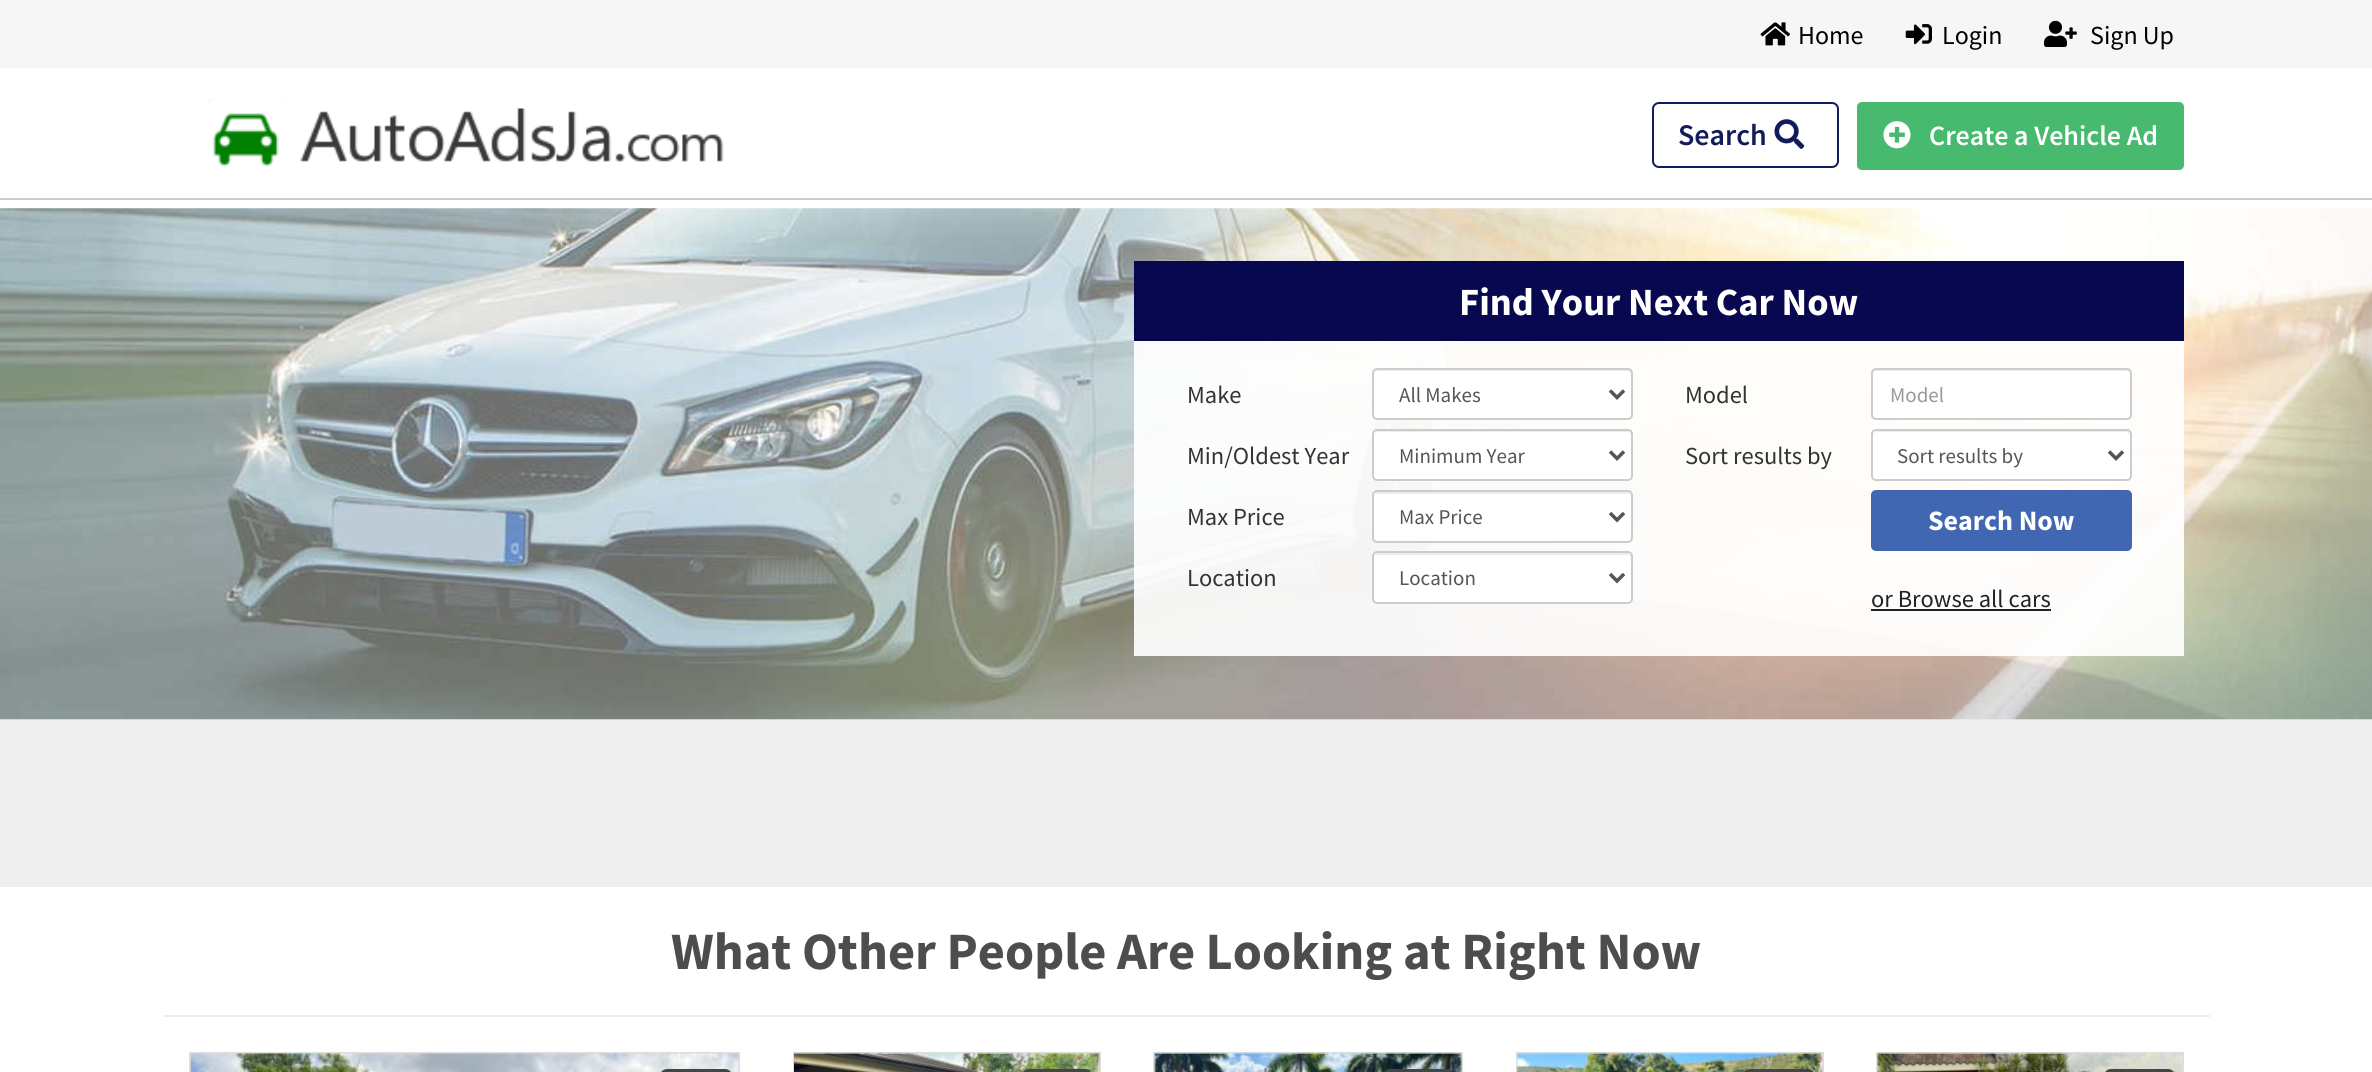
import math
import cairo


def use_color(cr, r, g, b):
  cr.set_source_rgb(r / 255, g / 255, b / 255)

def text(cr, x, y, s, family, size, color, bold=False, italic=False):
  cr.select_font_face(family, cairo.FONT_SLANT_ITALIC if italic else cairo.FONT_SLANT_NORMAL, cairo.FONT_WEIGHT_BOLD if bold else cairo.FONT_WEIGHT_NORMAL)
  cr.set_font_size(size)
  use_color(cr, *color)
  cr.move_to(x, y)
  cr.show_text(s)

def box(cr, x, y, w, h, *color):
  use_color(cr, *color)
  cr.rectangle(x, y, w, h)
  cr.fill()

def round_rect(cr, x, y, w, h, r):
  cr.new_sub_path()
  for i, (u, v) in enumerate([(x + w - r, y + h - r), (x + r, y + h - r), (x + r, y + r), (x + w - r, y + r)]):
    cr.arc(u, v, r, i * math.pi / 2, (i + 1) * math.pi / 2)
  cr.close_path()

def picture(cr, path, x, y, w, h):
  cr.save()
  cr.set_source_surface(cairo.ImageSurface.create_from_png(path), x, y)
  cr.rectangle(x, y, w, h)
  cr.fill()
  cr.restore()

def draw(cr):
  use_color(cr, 255, 255, 255)
  cr.paint()
  box(cr, 0, 0, 2372, 68, 246, 246, 246)
  picture(cr, "img_01.png", 1760, 22, 30, 24)
  picture(cr, "img_02.png", 1905, 24, 27, 21)
  picture(cr, "img_03.png", 2044, 20, 33, 27)
  box(cr, 0, 198, 2372, 2, 204, 204, 204)
  picture(cr, "img_04.png", 208, 98, 516, 69)
  round_rect(cr, 1653, 103, 185, 64, 6)
  use_color(cr, 19, 28, 90)
  cr.stroke()
  picture(cr, "img_05.png", 1774, 119, 31, 30)
  use_color(cr, 72, 186, 112)
  round_rect(cr, 1857, 102, 327, 68, 5)
  cr.fill()
  picture(cr, "img_06.png", 1883, 121, 28, 28)
  box(cr, 0, 719, 2372, 168, 239, 239, 239)
  picture(cr, "img_07.png", 0, 208, 2372, 512)
  box(cr, 1134, 261, 1050, 80, 8, 8, 80)
  cr.set_source_rgba(1, 1, 1, 0.92)
  cr.rectangle(1134, 341, 1050, 315)
  cr.fill()
  use_color(cr, 255, 255, 255)
  round_rect(cr, 1372, 368, 261, 52, 5)
  cr.fill()
  use_color(cr, 236, 236, 236)
  cr.new_path()
  cr.move_to(1377, 371)
  cr.line_to(1628, 371)
  cr.curve_to(1629, 371, 1631, 373, 1631, 374)
  cr.line_to(1631, 373)
  cr.curve_to(1631, 371, 1629, 369, 1627, 369)
  cr.line_to(1378, 369)
  cr.curve_to(1376, 369, 1374, 371, 1374, 373)
  cr.line_to(1374, 374)
  cr.curve_to(1374, 373, 1375, 371, 1377, 371)
  cr.close_path()
  cr.fill()
  round_rect(cr, 1373, 369, 259, 50, 4)
  use_color(cr, 204, 204, 204)
  cr.stroke()
  cr.new_path()
  cr.move_to(1610, 390.5)
  cr.line_to(1617, 397.5)
  cr.line_to(1624, 390.5)
  use_color(cr, 85, 85, 85)
  cr.set_line_width(3.5)
  cr.stroke()
  use_color(cr, 255, 255, 255)
  round_rect(cr, 1871, 368, 261, 52, 5)
  cr.fill()
  use_color(cr, 236, 236, 236)
  cr.new_path()
  cr.move_to(1876, 371)
  cr.line_to(2126, 371)
  cr.curve_to(2128, 371, 2130, 373, 2130, 374)
  cr.line_to(2130, 373)
  cr.curve_to(2130, 371, 2128, 369, 2126, 369)
  cr.line_to(1877, 369)
  cr.curve_to(1875, 369, 1873, 370, 1873, 372)
  cr.close_path()
  cr.fill()
  round_rect(cr, 1872, 369, 259, 50, 4)
  use_color(cr, 204, 204, 204)
  cr.set_line_width(2)
  cr.stroke()
  use_color(cr, 255, 255, 255)
  round_rect(cr, 1372, 429, 261, 52, 5)
  cr.fill()
  use_color(cr, 236, 236, 236)
  cr.new_path()
  cr.move_to(1377, 432)
  cr.line_to(1628, 432)
  cr.curve_to(1629, 432, 1631, 434, 1631, 436)
  cr.line_to(1631, 435)
  cr.curve_to(1631, 433, 1629, 431, 1627, 431)
  cr.line_to(1378, 431)
  cr.curve_to(1376, 431, 1374, 433, 1374, 435)
  cr.line_to(1374, 436)
  cr.curve_to(1374, 434, 1375, 432, 1377, 432)
  cr.close_path()
  cr.fill()
  round_rect(cr, 1373, 430, 259, 50, 4)
  use_color(cr, 204, 204, 204)
  cr.stroke()
  cr.new_path()
  cr.move_to(1610, 451.5)
  cr.line_to(1617, 458.5)
  cr.line_to(1624, 451.5)
  use_color(cr, 85, 85, 85)
  cr.set_line_width(3.5)
  cr.stroke()
  use_color(cr, 255, 255, 255)
  round_rect(cr, 1372, 490, 261, 53, 5)
  cr.fill()
  use_color(cr, 236, 236, 236)
  cr.new_path()
  cr.move_to(1377, 494)
  cr.line_to(1628, 494)
  cr.curve_to(1629, 494, 1631, 495, 1631, 497)
  cr.line_to(1631, 496)
  cr.curve_to(1631, 494, 1629, 492, 1627, 492)
  cr.line_to(1378, 492)
  cr.curve_to(1376, 492, 1374, 494, 1374, 496)
  cr.line_to(1374, 497)
  cr.curve_to(1374, 495, 1375, 494, 1377, 494)
  cr.close_path()
  cr.fill()
  round_rect(cr, 1373, 491, 259, 51, 4)
  use_color(cr, 204, 204, 204)
  cr.set_line_width(2)
  cr.stroke()
  cr.new_path()
  cr.move_to(1610, 513)
  cr.line_to(1617, 520)
  cr.line_to(1624, 513)
  use_color(cr, 85, 85, 85)
  cr.set_line_width(3.5)
  cr.stroke()
  use_color(cr, 255, 255, 255)
  round_rect(cr, 1372, 551, 261, 53, 5)
  cr.fill()
  use_color(cr, 236, 236, 236)
  cr.new_path()
  cr.move_to(1377, 555)
  cr.line_to(1628, 555)
  cr.curve_to(1629, 555, 1631, 556, 1631, 558)
  cr.line_to(1631, 557)
  cr.curve_to(1631, 555, 1629, 553, 1627, 553)
  cr.line_to(1378, 553)
  cr.curve_to(1376, 553, 1374, 555, 1374, 557)
  cr.line_to(1374, 558)
  cr.curve_to(1374, 556, 1375, 555, 1377, 555)
  cr.close_path()
  cr.fill()
  round_rect(cr, 1373, 552, 259, 51, 4)
  use_color(cr, 204, 204, 204)
  cr.set_line_width(2)
  cr.stroke()
  cr.new_path()
  cr.move_to(1610, 574)
  cr.line_to(1617, 581)
  cr.line_to(1624, 574)
  use_color(cr, 85, 85, 85)
  cr.set_line_width(3.5)
  cr.stroke()
  use_color(cr, 255, 255, 255)
  round_rect(cr, 1871, 429, 261, 52, 5)
  cr.fill()
  use_color(cr, 236, 236, 236)
  cr.new_path()
  cr.move_to(1876, 432)
  cr.line_to(2126, 432)
  cr.curve_to(2128, 432, 2130, 434, 2130, 436)
  cr.curve_to(2130, 433, 2129, 431, 2126, 431)
  cr.line_to(1877, 431)
  cr.line_to(1875, 432)
  cr.line_to(1874, 433)
  cr.close_path()
  cr.fill()
  round_rect(cr, 1872, 430, 259, 50, 4)
  use_color(cr, 204, 204, 204)
  cr.set_line_width(2)
  cr.stroke()
  cr.new_path()
  cr.move_to(2109, 451.5)
  cr.line_to(2116, 458.5)
  cr.line_to(2123, 451.5)
  use_color(cr, 85, 85, 85)
  cr.set_line_width(3.5)
  cr.stroke()
  use_color(cr, 66, 103, 178)
  round_rect(cr, 1871, 490, 261, 61, 5)
  cr.fill()
  box(cr, 1871, 609, 180, 2, 34, 34, 34)
  box(cr, 163, 1015, 2047, 2, 238, 238, 238)
  cr.rectangle(190, 1053, 549, 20)
  use_color(cr, 221, 221, 221)
  cr.set_line_width(2)
  cr.stroke()
  picture(cr, "img_08.png", 190, 1053, 549, 19)
  use_color(cr, 69, 69, 69)
  round_rect(cr, 660, 1069, 72, 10, 7)
  cr.fill()
  cr.rectangle(794, 1053, 306, 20)
  use_color(cr, 221, 221, 221)
  cr.stroke()
  picture(cr, "img_09.png", 794, 1052, 306, 20)
  use_color(cr, 69, 69, 69)
  round_rect(cr, 1022, 1069, 70, 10, 7)
  cr.fill()
  cr.rectangle(1154, 1053, 308, 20)
  use_color(cr, 221, 221, 221)
  cr.stroke()
  picture(cr, "img_10.png", 1154, 1052, 308, 20)
  use_color(cr, 69, 69, 69)
  round_rect(cr, 1383, 1069, 71, 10, 7)
  cr.fill()
  cr.rectangle(1517, 1053, 306, 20)
  use_color(cr, 221, 221, 221)
  cr.stroke()
  picture(cr, "img_11.png", 1516, 1052, 307, 20)
  use_color(cr, 69, 69, 69)
  round_rect(cr, 1743, 1069, 72, 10, 7)
  cr.fill()
  cr.rectangle(1877, 1053, 306, 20)
  use_color(cr, 221, 221, 221)
  cr.stroke()
  picture(cr, "img_12.png", 1877, 1052, 305, 20)
  use_color(cr, 69, 69, 69)
  round_rect(cr, 2104, 1069, 71, 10, 7)
  cr.fill()
  text(cr, 1798, 44, "Home", "Source Sans Pro", 26, (0, 0, 0))
  text(cr, 1942, 44, "Login", "Source Sans Pro", 26, (0, 0, 0))
  text(cr, 2090, 44, "Sign Up", "Source Sans Pro", 26, (0, 0, 0))
  text(cr, 1678, 145, "Search", "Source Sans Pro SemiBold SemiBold", 30, (19, 28, 90))
  text(cr, 1929, 145, "Create a Vehicle Ad", "Source Sans Pro SemiBold SemiBold", 28, (255, 255, 255))
  text(cr, 1459, 315, "Find Your Next Car Now", "Source Sans Pro", 38.5, (255, 255, 255), bold=True)
  text(cr, 1187, 403, "Make", "Source Sans Pro", 24.5, (51, 51, 51))
  text(cr, 1399, 402, "All Makes", "Source Sans Pro", 21, (85, 85, 85))
  text(cr, 1685, 403, "Model", "Source Sans Pro", 24.5, (51, 51, 51))
  text(cr, 1890, 402, "Model", "Source Sans Pro", 21, (153, 153, 153))
  text(cr, 1187, 464, "Min/Oldest Year", "Source Sans Pro", 24.5, (51, 51, 51))
  text(cr, 1399, 463, "Minimum Year", "Source Sans Pro", 21, (85, 85, 85))
  text(cr, 1187, 525, "Max Price", "Source Sans Pro", 24.5, (51, 51, 51))
  text(cr, 1399, 524, "Max Price", "Source Sans Pro", 21, (85, 85, 85))
  text(cr, 1187, 586, "Location", "Source Sans Pro", 24.5, (51, 51, 51))
  text(cr, 1399, 585, "Location", "Source Sans Pro", 21, (85, 85, 85))
  text(cr, 1685, 464, "Sort results by", "Source Sans Pro", 24.5, (51, 51, 51))
  text(cr, 1897, 463, "Sort results by", "Source Sans Pro", 21, (85, 85, 85))
  text(cr, 1928, 530, "Search Now", "Source Sans Pro", 28, (255, 255, 255), bold=True)
  text(cr, 1871, 607, "or Browse all cars", "Source Sans Pro", 24.5, (34, 34, 34))
  text(cr, 671, 969, "What Other People Are Looking at Right Now", "Source Sans Pro", 52.5, (77, 77, 77), bold=True)


surface = cairo.ImageSurface(cairo.FORMAT_RGB24, 2372, 1072)
cr = cairo.Context(surface)
options = cairo.FontOptions()
options.set_hint_metrics(cairo.HINT_METRICS_OFF)
options.set_hint_style(cairo.HINT_STYLE_NONE)
cr.set_font_options(options)
cr.set_miter_limit(4)
draw(cr)
surface.write_to_png("out.png")
